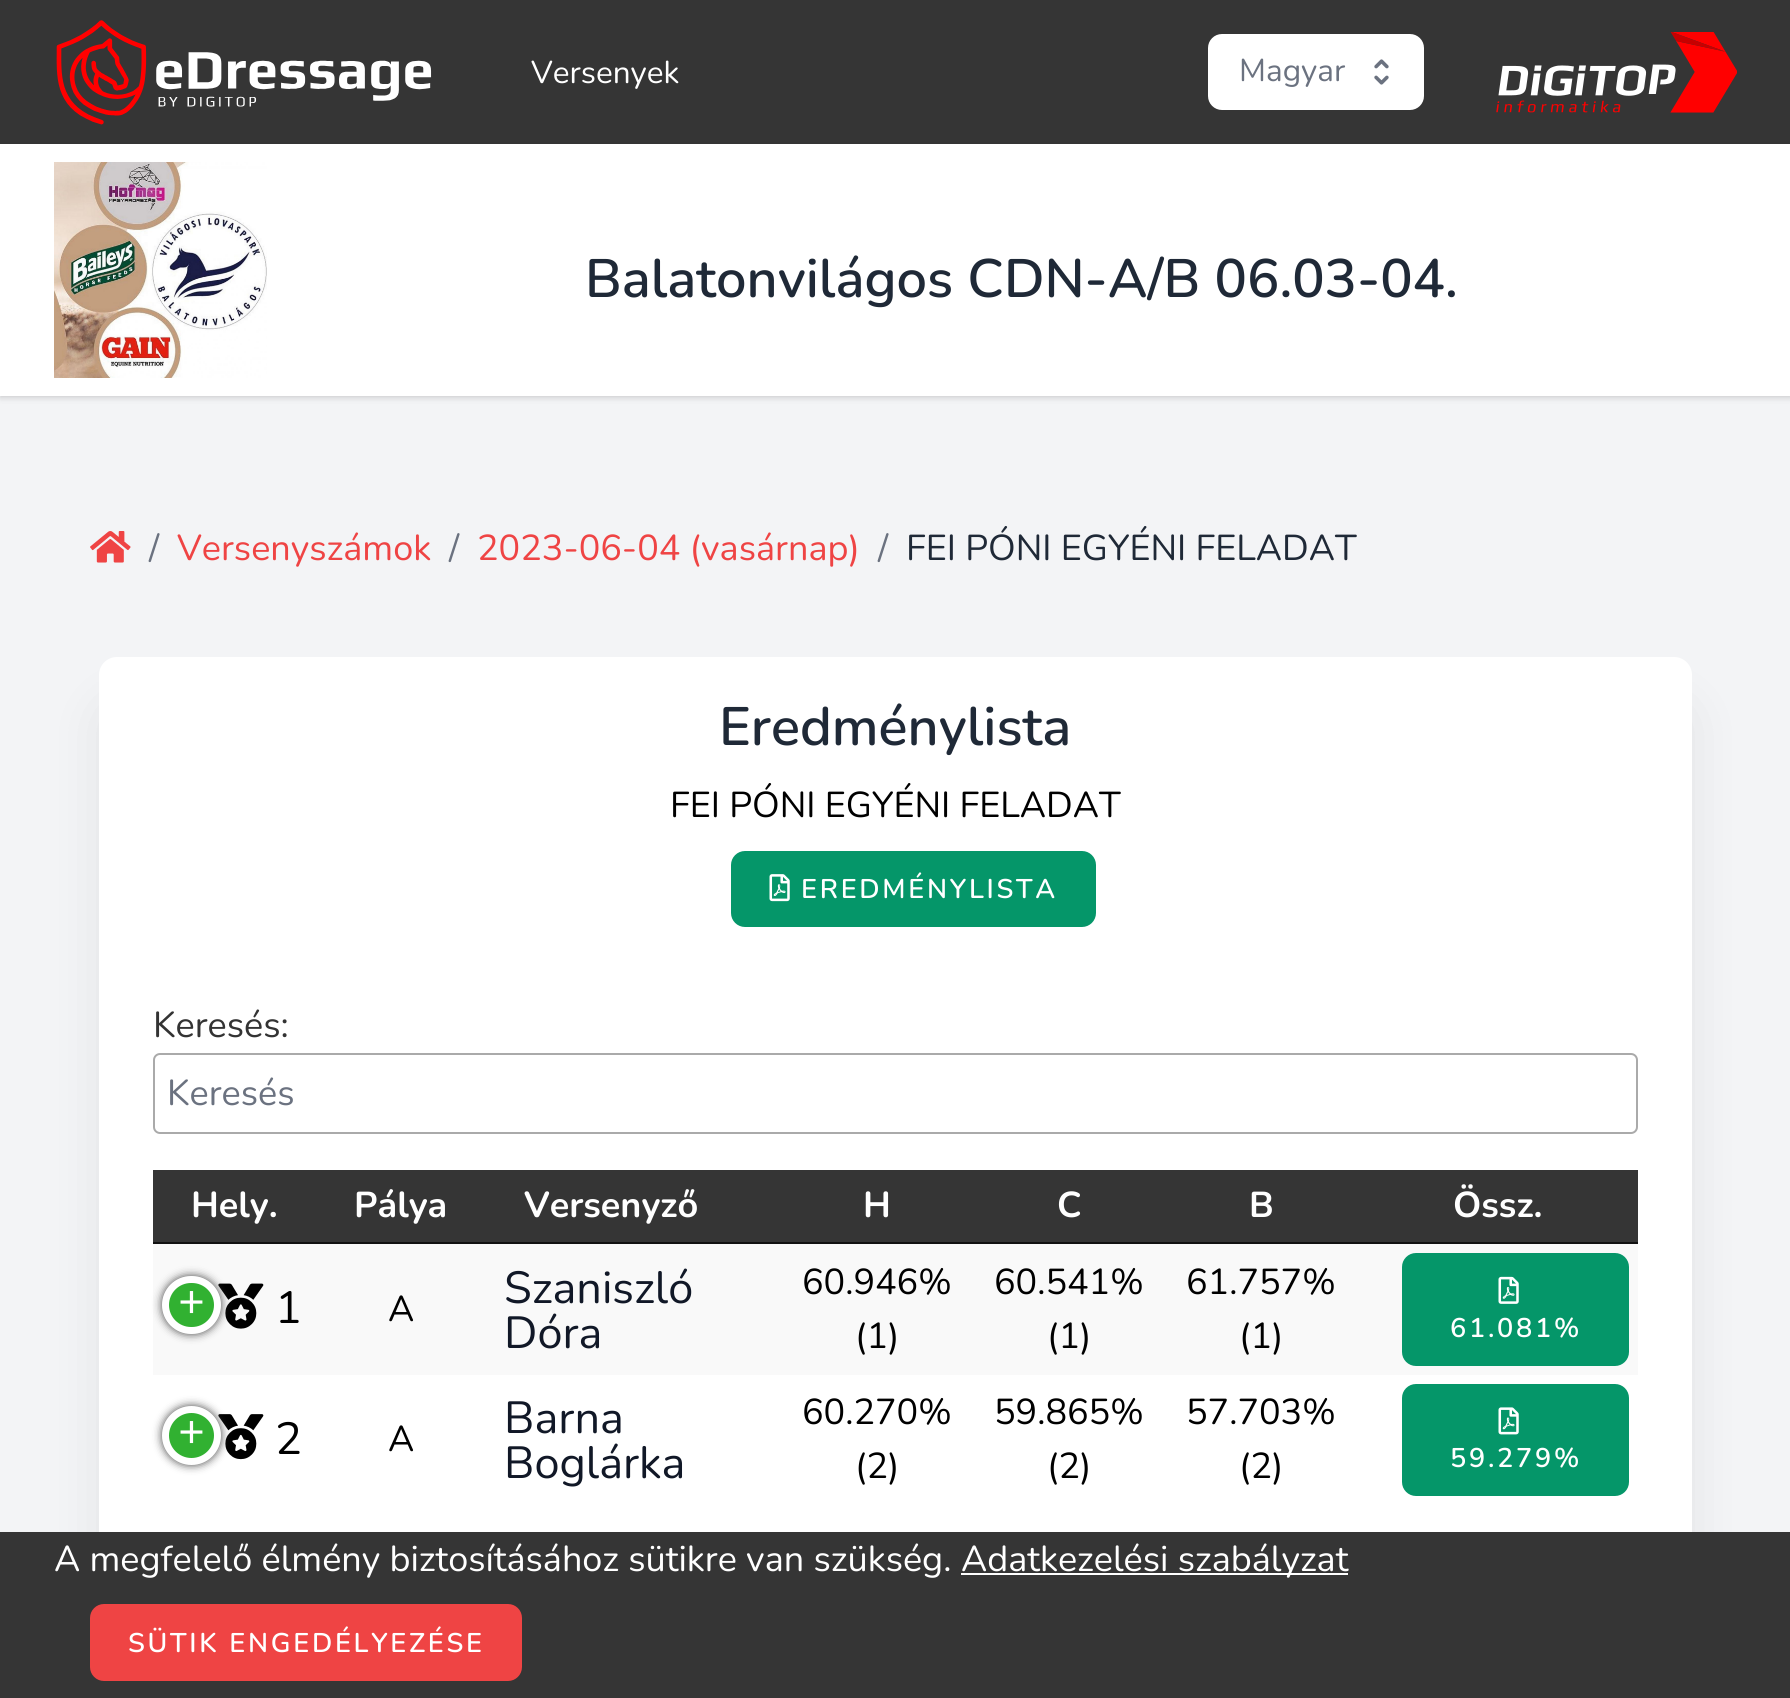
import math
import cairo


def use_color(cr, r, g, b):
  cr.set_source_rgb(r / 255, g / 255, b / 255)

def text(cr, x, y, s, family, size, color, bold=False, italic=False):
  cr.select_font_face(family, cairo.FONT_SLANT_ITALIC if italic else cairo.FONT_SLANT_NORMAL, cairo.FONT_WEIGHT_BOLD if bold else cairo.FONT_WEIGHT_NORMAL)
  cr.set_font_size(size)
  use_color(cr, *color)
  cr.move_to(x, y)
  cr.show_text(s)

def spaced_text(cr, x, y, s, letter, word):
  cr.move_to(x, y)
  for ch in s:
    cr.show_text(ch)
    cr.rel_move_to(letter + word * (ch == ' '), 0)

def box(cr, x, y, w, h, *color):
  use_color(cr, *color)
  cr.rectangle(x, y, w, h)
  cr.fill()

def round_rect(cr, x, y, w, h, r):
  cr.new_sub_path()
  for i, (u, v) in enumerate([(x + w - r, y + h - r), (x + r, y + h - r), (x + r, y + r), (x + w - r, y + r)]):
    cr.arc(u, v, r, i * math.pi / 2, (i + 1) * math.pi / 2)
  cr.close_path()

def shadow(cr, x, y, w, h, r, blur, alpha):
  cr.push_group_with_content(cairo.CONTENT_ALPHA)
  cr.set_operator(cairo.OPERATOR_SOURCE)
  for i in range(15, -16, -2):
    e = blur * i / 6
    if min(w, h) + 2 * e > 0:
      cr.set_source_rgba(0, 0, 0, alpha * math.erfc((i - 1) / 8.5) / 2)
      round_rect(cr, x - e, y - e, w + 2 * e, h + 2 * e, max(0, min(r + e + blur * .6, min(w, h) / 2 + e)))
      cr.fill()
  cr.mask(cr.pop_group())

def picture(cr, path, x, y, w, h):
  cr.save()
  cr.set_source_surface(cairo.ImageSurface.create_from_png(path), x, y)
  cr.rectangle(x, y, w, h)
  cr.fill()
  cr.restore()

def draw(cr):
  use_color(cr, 243, 244, 246)
  cr.paint()
  box(cr, 0, 0, 1790, 144, 53, 53, 53)
  picture(cr, "img_01.png", 56, 20, 376, 105)
  use_color(cr, 255, 255, 255)
  round_rect(cr, 1208, 34, 216, 76, 14)
  cr.fill()
  picture(cr, "img_02.png", 1374, 59, 15, 26)
  picture(cr, "img_03.png", 1496, 32, 241, 81)
  use_color(cr, 0, 0, 0)
  shadow(cr, 0, 146, 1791, 252, 0, 2, 0.06)
  shadow(cr, 0, 146, 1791, 252, 0, 3.5, 0.1)
  box(cr, 0, 144, 1790, 252, 255, 255, 255)
  picture(cr, "img_04.png", 54, 162, 213, 216)
  picture(cr, "img_05.png", 90, 531, 41, 32)
  use_color(cr, 0, 0, 0)
  shadow(cr, 110, 713, 1571, 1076, 7, 28, 0.1)
  use_color(cr, 255, 255, 255)
  round_rect(cr, 99, 657, 1593, 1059, 18)
  cr.fill()
  use_color(cr, 5, 150, 105)
  round_rect(cr, 731, 851, 365, 76, 14)
  cr.fill()
  picture(cr, "img_06.png", 769, 874, 21, 28)
  round_rect(cr, 154, 1054, 1483, 79, 6)
  use_color(cr, 170, 170, 170)
  cr.stroke()
  box(cr, 153, 1170, 1485, 72, 53, 53, 53)
  box(cr, 153, 1242, 1485, 2, 17, 17, 17)
  box(cr, 153, 1244, 1485, 131, 249, 249, 249)
  picture(cr, "img_07.png", 218, 1283, 46, 46)
  use_color(cr, 68, 68, 68)
  shadow(cr, 162, 1276, 59, 58, 29, 4.5, 1)
  use_color(cr, 49, 177, 49)
  round_rect(cr, 165.5, 1279.5, 52, 51, 25.5)
  cr.fill_preserve()
  use_color(cr, 255, 255, 255)
  cr.set_line_width(7)
  cr.stroke()
  use_color(cr, 5, 150, 105)
  round_rect(cr, 1402, 1253, 227, 113, 14)
  cr.fill()
  picture(cr, "img_08.png", 1498, 1276, 21, 28)
  picture(cr, "img_09.png", 218, 1414, 46, 46)
  use_color(cr, 68, 68, 68)
  shadow(cr, 162, 1406, 59, 59, 29.5, 4.5, 1)
  use_color(cr, 49, 177, 49)
  cr.arc(191.5, 1435.5, 26, 0, 2 * math.pi)
  cr.fill_preserve()
  use_color(cr, 255, 255, 255)
  cr.stroke()
  use_color(cr, 5, 150, 105)
  round_rect(cr, 1402, 1384, 227, 112, 14)
  cr.fill()
  picture(cr, "img_10.png", 1498, 1407, 21, 28)
  box(cr, 0, 1532, 1790, 166, 53, 53, 53)
  box(cr, 961, 1573, 387, 2, 255, 255, 255)
  use_color(cr, 239, 68, 68)
  round_rect(cr, 90, 1604, 432, 77, 14)
  cr.fill()
  text(cr, 531, 83, "Versenyek", "Nunito", 31.5, (255, 255, 255))
  text(cr, 1239, 81, "Magyar", "Nunito", 31.5, (107, 114, 128))
  text(cr, 585, 297, "Balatonvilágos CDN-A/B 06.03-04.", "Nunito SemiBold", 54, (31, 41, 55))
  text(cr, 149, 560, "/", "Nunito", 36, (107, 114, 128))
  text(cr, 177, 560, "Versenyszámok", "Nunito", 36, (239, 68, 68))
  text(cr, 449, 560, "/", "Nunito", 36, (107, 114, 128))
  text(cr, 477, 560, "2023-06-04 (vasárnap)", "Nunito", 36, (239, 68, 68))
  text(cr, 878, 560, "/", "Nunito", 36, (107, 114, 128))
  text(cr, 906, 560, "FEI PÓNI EGYÉNI FELADAT", "Nunito", 36, (31, 41, 55))
  text(cr, 719, 745, "Eredménylista", "Nunito SemiBold", 54, (31, 41, 55))
  text(cr, 670, 817, "FEI PÓNI EGYÉNI FELADAT", "Nunito", 36, (0, 0, 0))
  cr.select_font_face("Nunito SemiBold")
  cr.set_font_size(27)
  use_color(cr, 255, 255, 255)
  spaced_text(cr, 801, 898, "EREDMÉNYLISTA", 2.75, 0)
  text(cr, 153, 1037, "Keresés:", "Nunito", 36, (51, 51, 51))
  text(cr, 167, 1105, "Keresés", "Nunito", 36, (107, 114, 128))
  text(cr, 191, 1217, "Hely.", "Nunito", 36, (255, 255, 255), bold=True)
  text(cr, 354, 1217, "Pálya", "Nunito", 36, (255, 255, 255), bold=True)
  text(cr, 524, 1217, "Versenyző", "Nunito", 36, (255, 255, 255), bold=True)
  text(cr, 863, 1217, "H", "Nunito", 36, (255, 255, 255), bold=True)
  text(cr, 1057, 1217, "C", "Nunito", 36, (255, 255, 255), bold=True)
  text(cr, 1249, 1217, "B", "Nunito", 36, (255, 255, 255), bold=True)
  text(cr, 1453, 1217, "Össz.", "Nunito", 36, (255, 255, 255), bold=True)
  text(cr, 178, 1317, "+", "Liberation Mono", 45, (255, 255, 255))
  text(cr, 275, 1323, "1", "Nunito", 45, (0, 0, 0))
  text(cr, 388, 1321, "A", "Nunito", 36, (0, 0, 0))
  text(cr, 504, 1303, "Szaniszló", "Nunito", 45, (17, 24, 39))
  text(cr, 504, 1348, "Dóra", "Nunito", 45, (17, 24, 39))
  text(cr, 802, 1294, "60.946%", "Nunito", 36, (0, 0, 0))
  text(cr, 855, 1348, "(1)", "Nunito", 36, (0, 0, 0))
  text(cr, 994, 1294, "60.541%", "Nunito", 36, (0, 0, 0))
  text(cr, 1047, 1348, "(1)", "Nunito", 36, (0, 0, 0))
  text(cr, 1186, 1294, "61.757%", "Nunito", 36, (0, 0, 0))
  text(cr, 1239, 1348, "(1)", "Nunito", 36, (0, 0, 0))
  cr.select_font_face("Nunito SemiBold")
  cr.set_font_size(27)
  use_color(cr, 255, 255, 255)
  spaced_text(cr, 1450, 1337, "61.081%", 2.75, 0)
  text(cr, 178, 1447, "+", "Liberation Mono", 45, (255, 255, 255))
  text(cr, 275, 1454, "2", "Nunito", 45, (0, 0, 0))
  text(cr, 388, 1451, "A", "Nunito", 36, (0, 0, 0))
  text(cr, 504, 1433, "Barna", "Nunito", 45, (17, 24, 39))
  text(cr, 504, 1478, "Boglárka", "Nunito", 45, (17, 24, 39))
  text(cr, 802, 1424, "60.270%", "Nunito", 36, (0, 0, 0))
  text(cr, 855, 1478, "(2)", "Nunito", 36, (0, 0, 0))
  text(cr, 994, 1424, "59.865%", "Nunito", 36, (0, 0, 0))
  text(cr, 1047, 1478, "(2)", "Nunito", 36, (0, 0, 0))
  text(cr, 1186, 1424, "57.703%", "Nunito", 36, (0, 0, 0))
  text(cr, 1239, 1478, "(2)", "Nunito", 36, (0, 0, 0))
  cr.select_font_face("Nunito SemiBold")
  cr.set_font_size(27)
  use_color(cr, 255, 255, 255)
  spaced_text(cr, 1450, 1467, "59.279%", 2.75, 0)
  text(cr, 54, 1571, "A megfelelő élmény biztosításához sütikre van szükség.", "Nunito", 36, (255, 255, 255))
  text(cr, 961, 1571, "Adatkezelési szabályzat", "Nunito", 36, (255, 255, 255))
  cr.select_font_face("Nunito SemiBold")
  cr.set_font_size(27)
  spaced_text(cr, 128, 1652, "SÜTIK ENGEDÉLYEZÉSE", 2.75, 0)


surface = cairo.ImageSurface(cairo.FORMAT_RGB24, 1790, 1698)
cr = cairo.Context(surface)
options = cairo.FontOptions()
options.set_hint_metrics(cairo.HINT_METRICS_OFF)
options.set_hint_style(cairo.HINT_STYLE_NONE)
cr.set_font_options(options)
cr.set_miter_limit(4)
draw(cr)
surface.write_to_png("out.png")
